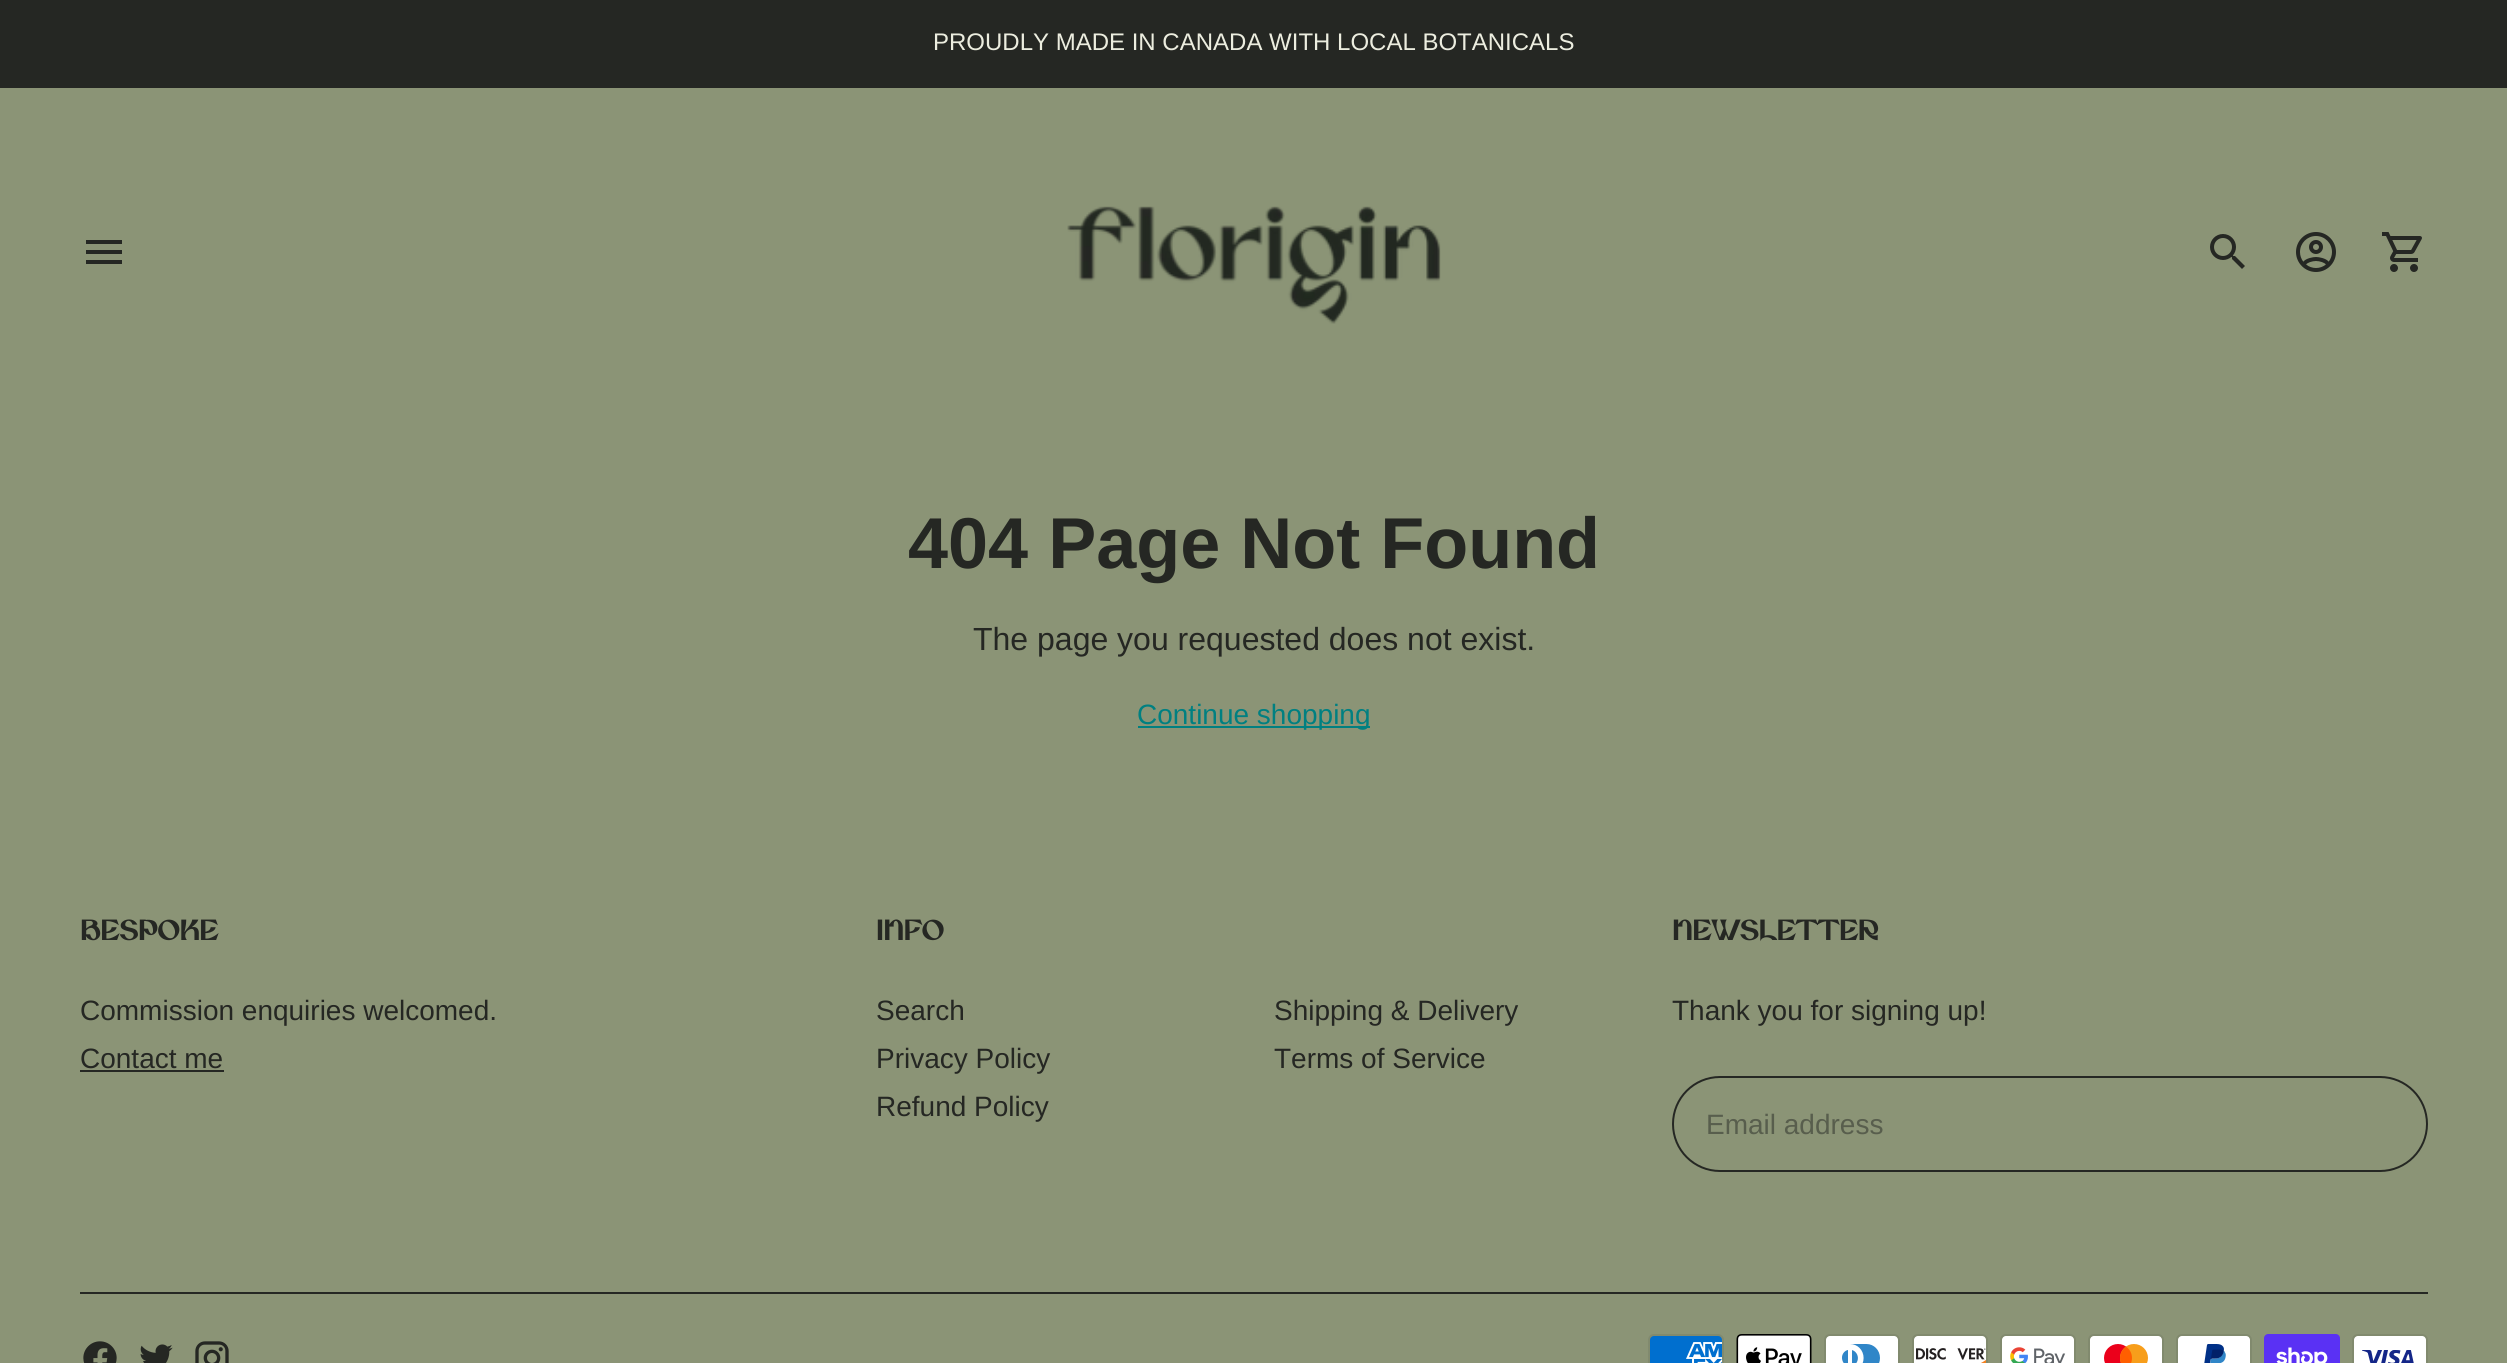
import math
import cairo


def use_color(cr, r, g, b):
  cr.set_source_rgb(r / 255, g / 255, b / 255)

def text(cr, x, y, s, family, size, color, bold=False, italic=False):
  cr.select_font_face(family, cairo.FONT_SLANT_ITALIC if italic else cairo.FONT_SLANT_NORMAL, cairo.FONT_WEIGHT_BOLD if bold else cairo.FONT_WEIGHT_NORMAL)
  cr.set_font_size(size)
  use_color(cr, *color)
  cr.move_to(x, y)
  cr.show_text(s)

def box(cr, x, y, w, h, *color):
  use_color(cr, *color)
  cr.rectangle(x, y, w, h)
  cr.fill()

def round_rect(cr, x, y, w, h, r):
  cr.new_sub_path()
  for i, (u, v) in enumerate([(x + w - r, y + h - r), (x + r, y + h - r), (x + r, y + r), (x + w - r, y + r)]):
    cr.arc(u, v, r, i * math.pi / 2, (i + 1) * math.pi / 2)
  cr.close_path()

def picture(cr, path, x, y, w, h):
  cr.save()
  cr.set_source_surface(cairo.ImageSurface.create_from_png(path), x, y)
  cr.rectangle(x, y, w, h)
  cr.fill()
  cr.restore()

def draw(cr):
  use_color(cr, 139, 148, 118)
  cr.paint()
  box(cr, 0, 0, 2507, 88, 37, 39, 35)
  cr.new_path()
  cr.move_to(86, 264)
  cr.line_to(122, 264)
  cr.line_to(122, 260)
  cr.line_to(86, 260)
  cr.close_path()
  cr.move_to(86, 254)
  cr.line_to(122, 254)
  cr.line_to(122, 250)
  cr.line_to(86, 250)
  cr.close_path()
  cr.move_to(86, 240)
  cr.line_to(86, 244)
  cr.line_to(122, 244)
  cr.line_to(122, 240)
  cr.close_path()
  cr.fill()
  picture(cr, "img_01.png", 1067, 206, 374, 118)
  picture(cr, "img_02.png", 2210, 234, 35, 35)
  picture(cr, "img_03.png", 2296, 232, 40, 40)
  picture(cr, "img_04.png", 2382, 232, 40, 40)
  box(cr, 1138, 726, 232, 2, 0, 128, 129)
  box(cr, 80, 1070, 144, 2, 37, 39, 35)
  round_rect(cr, 1673, 1077, 754, 94, 47)
  cr.stroke()
  box(cr, 80, 1292, 2348, 2, 37, 39, 35)
  picture(cr, "img_05.png", 83, 1341, 34, 22)
  picture(cr, "img_06.png", 140, 1344, 33, 19)
  picture(cr, "img_07.png", 195, 1341, 34, 22)
  picture(cr, "img_08.png", 1648, 1334, 76, 29)
  picture(cr, "img_09.png", 1736, 1334, 76, 29)
  picture(cr, "img_10.png", 1824, 1334, 76, 29)
  picture(cr, "img_11.png", 1912, 1334, 76, 29)
  picture(cr, "img_12.png", 2000, 1334, 76, 29)
  picture(cr, "img_13.png", 2088, 1334, 76, 29)
  picture(cr, "img_14.png", 2176, 1334, 76, 29)
  picture(cr, "img_15.png", 2264, 1334, 76, 29)
  picture(cr, "img_16.png", 2352, 1334, 76, 29)
  text(cr, 933, 50, "PROUDLY MADE IN CANADA WITH LOCAL BOTANICALS", "Liberation Sans", 24, (236, 237, 223))
  text(cr, 908, 568, "404 Page Not Found", "Liberation Sans", 72, (37, 39, 35), bold=True)
  text(cr, 973, 650, "The page you requested does not exist.", "Liberation Sans", 32, (37, 39, 35))
  text(cr, 1137, 724, "Continue shopping", "Liberation Sans", 28, (0, 128, 129))
  text(cr, 80, 940, "BESPOKE", "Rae", 28, (37, 39, 35), bold=True)
  text(cr, 80, 1020, "Commission enquiries welcomed.", "Liberation Sans", 28, (37, 39, 35))
  text(cr, 80, 1068, "Contact me", "Liberation Sans", 28, (37, 39, 35))
  text(cr, 876, 940, "INFO", "Rae", 28, (37, 39, 35), bold=True)
  text(cr, 876, 1020, "Search", "Liberation Sans", 28, (37, 39, 35))
  text(cr, 1274, 1020, "Shipping & Delivery", "Liberation Sans", 28, (37, 39, 35))
  text(cr, 876, 1068, "Privacy Policy", "Liberation Sans", 28, (37, 39, 35))
  text(cr, 1274, 1068, "Terms of Service", "Liberation Sans", 28, (37, 39, 35))
  text(cr, 876, 1116, "Refund Policy", "Liberation Sans", 28, (37, 39, 35))
  text(cr, 1672, 940, "NEWSLETTER", "Rae", 28, (37, 39, 35), bold=True)
  text(cr, 1672, 1020, "Thank you for signing up!", "Liberation Sans", 28, (37, 39, 35))
  text(cr, 1706, 1134, "Email address", "Liberation Sans", 28, (88, 94, 77))


surface = cairo.ImageSurface(cairo.FORMAT_RGB24, 2507, 1363)
cr = cairo.Context(surface)
options = cairo.FontOptions()
options.set_hint_metrics(cairo.HINT_METRICS_OFF)
options.set_hint_style(cairo.HINT_STYLE_NONE)
cr.set_font_options(options)
cr.set_miter_limit(4)
draw(cr)
surface.write_to_png("out.png")
